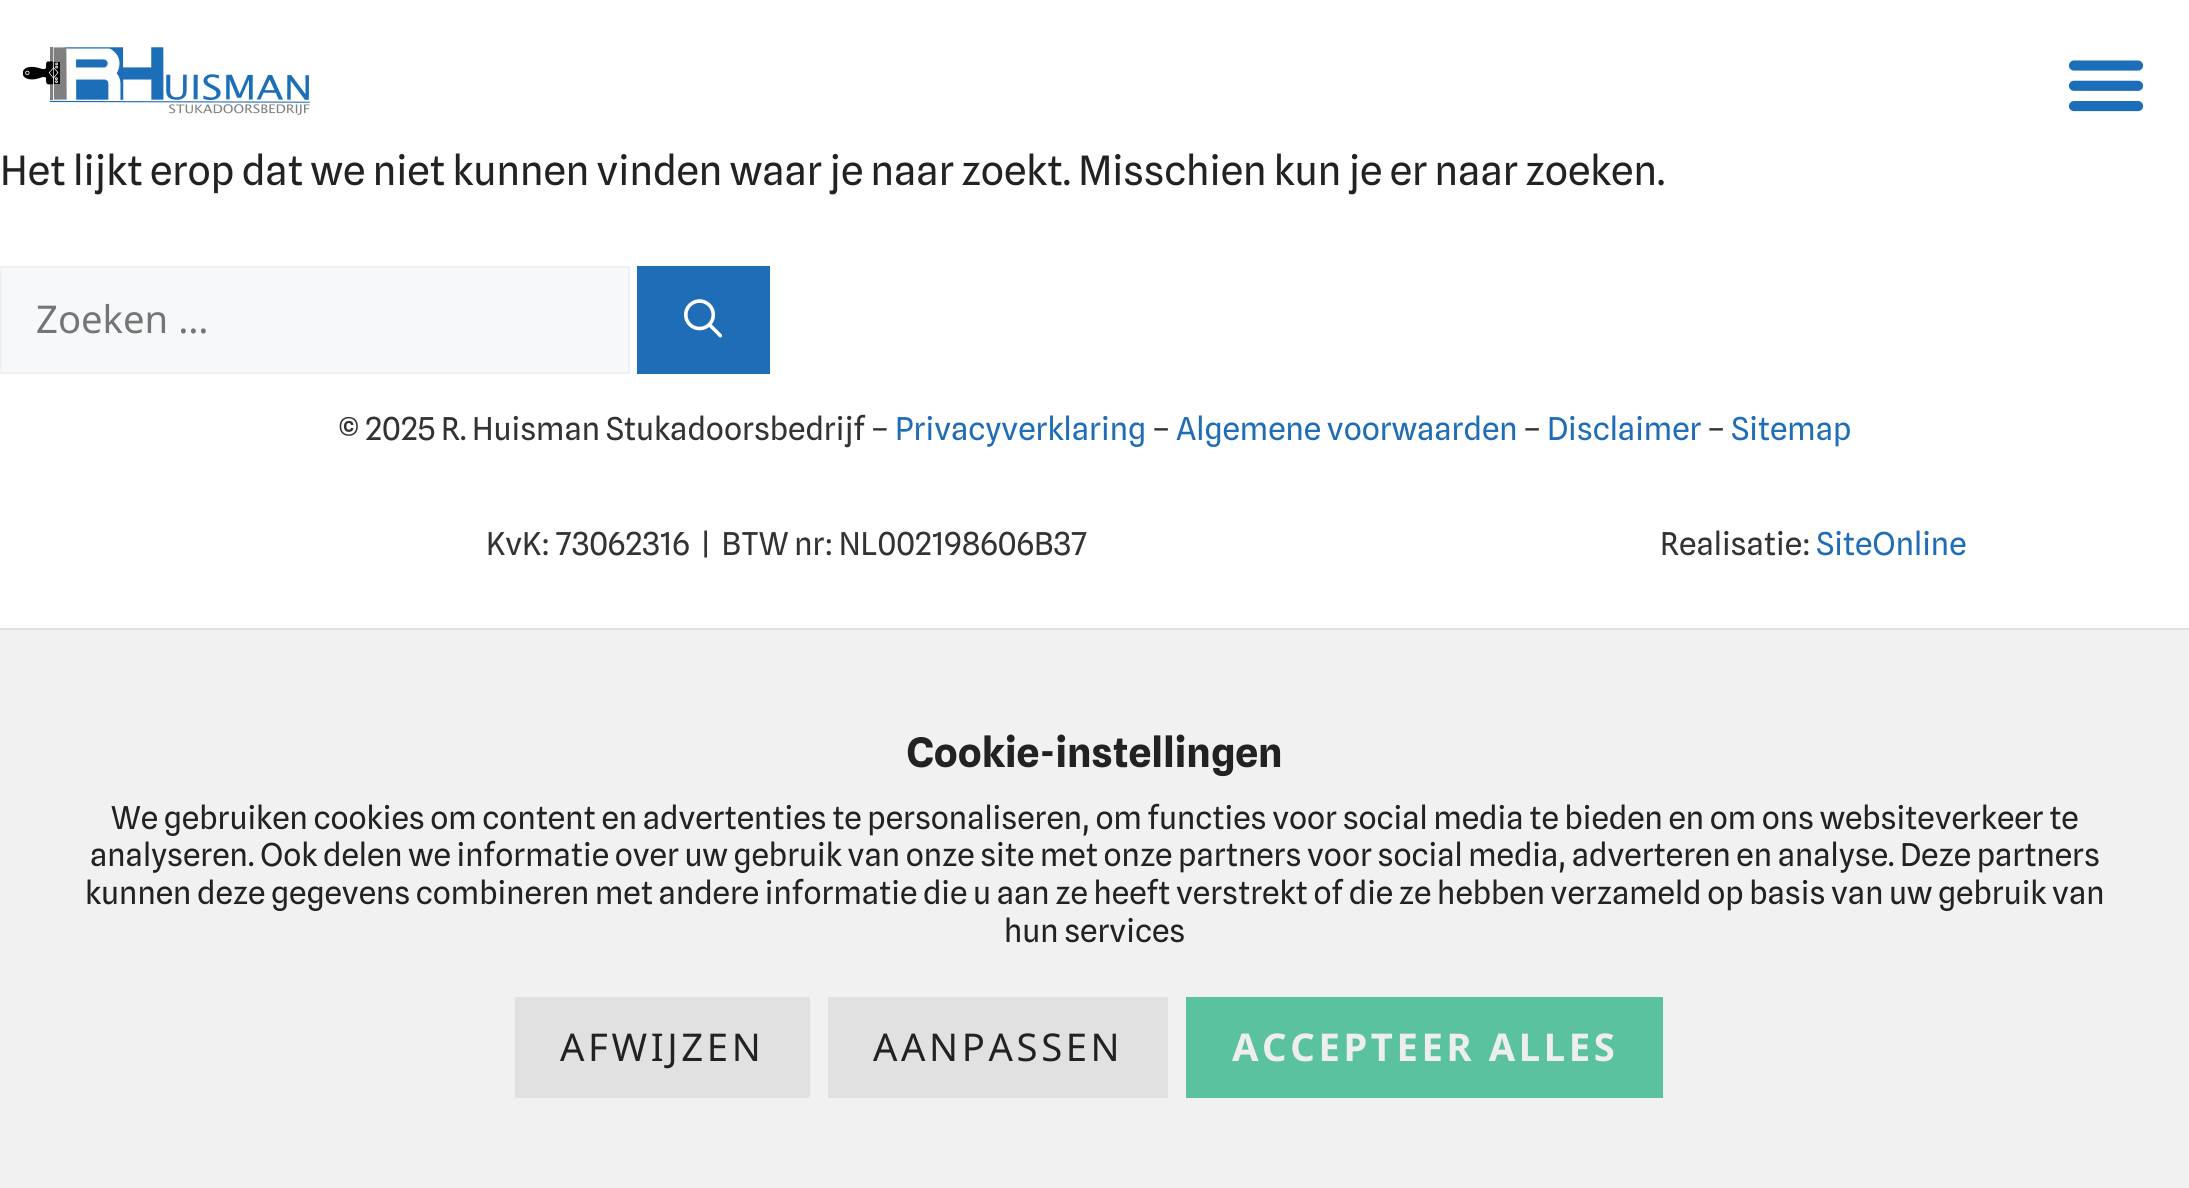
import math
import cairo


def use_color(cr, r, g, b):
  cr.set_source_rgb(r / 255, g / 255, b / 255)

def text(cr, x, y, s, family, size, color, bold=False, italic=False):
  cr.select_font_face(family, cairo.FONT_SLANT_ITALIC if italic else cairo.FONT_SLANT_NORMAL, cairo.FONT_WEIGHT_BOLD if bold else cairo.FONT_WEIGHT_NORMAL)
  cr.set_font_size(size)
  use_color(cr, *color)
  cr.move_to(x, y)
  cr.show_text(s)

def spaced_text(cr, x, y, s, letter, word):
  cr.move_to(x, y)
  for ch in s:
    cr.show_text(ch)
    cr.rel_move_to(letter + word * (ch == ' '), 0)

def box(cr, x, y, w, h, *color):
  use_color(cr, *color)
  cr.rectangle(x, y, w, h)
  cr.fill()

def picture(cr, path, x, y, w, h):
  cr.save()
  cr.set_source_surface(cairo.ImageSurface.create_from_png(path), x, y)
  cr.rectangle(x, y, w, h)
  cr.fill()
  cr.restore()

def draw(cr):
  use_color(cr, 255, 255, 255)
  cr.paint()
  picture(cr, "img_01.png", 23, 47, 287, 68)
  picture(cr, "img_02.png", 2068, 60, 76, 52)
  use_color(cr, 247, 248, 249)
  cr.rectangle(1, 267, 628, 106)
  cr.fill_preserve()
  use_color(cr, 240, 240, 240)
  cr.stroke()
  box(cr, 637, 266, 133, 108, 32, 109, 183)
  picture(cr, "img_03.png", 684, 299, 38, 39)
  box(cr, 0, 630, 2189, 558, 241, 241, 241)
  box(cr, 0, 628, 2189, 2, 225, 225, 225)
  box(cr, 515, 997, 295, 101, 225, 225, 225)
  box(cr, 828, 997, 340, 101, 225, 225, 225)
  box(cr, 1186, 997, 477, 101, 91, 194, 159)
  text(cr, 0, 185, "Het lijkt erop dat we niet kunnen vinden waar je naar zoekt. Misschien kun je er naar zoeken.", "Spline Sans", 40.5, (34, 34, 34))
  text(cr, 36, 333, "Zoeken …", "Noto Sans", 38.25, (117, 117, 117))
  text(cr, 338, 440, "© 2025 R. Huisman Stukadoorsbedrijf –", "Spline Sans", 31.5, (51, 51, 51))
  text(cr, 895, 440, "Privacyverklaring", "Spline Sans", 31.5, (32, 109, 183))
  text(cr, 1152, 440, "–", "Spline Sans", 31.5, (51, 51, 51))
  text(cr, 1176, 440, "Algemene voorwaarden", "Spline Sans", 31.5, (32, 109, 183))
  text(cr, 1523, 440, "–", "Spline Sans", 31.5, (51, 51, 51))
  text(cr, 1547, 440, "Disclaimer", "Spline Sans", 31.5, (32, 109, 183))
  text(cr, 1707, 440, "–", "Spline Sans", 31.5, (51, 51, 51))
  text(cr, 1731, 440, "Sitemap", "Spline Sans", 31.5, (32, 109, 183))
  text(cr, 486, 555, "KvK: 73062316  |  BTW nr: NL002198606B37", "Spline Sans", 31.5, (51, 51, 51))
  text(cr, 1660, 555, "Realisatie:", "Spline Sans", 31.5, (51, 51, 51))
  text(cr, 1816, 555, "SiteOnline", "Spline Sans", 31.5, (32, 109, 183))
  text(cr, 906, 767, "Cookie-instellingen", "Spline Sans", 40.5, (34, 34, 34), bold=True)
  text(cr, 111, 829, "We gebruiken cookies om content en advertenties te personaliseren, om functies voor social media te bieden en om ons websiteverkeer te", "Spline Sans", 31.5, (34, 34, 34))
  text(cr, 90, 866, "analyseren. Ook delen we informatie over uw gebruik van onze site met onze partners voor social media, adverteren en analyse. Deze partners", "Spline Sans", 31.5, (34, 34, 34))
  text(cr, 85, 904, "kunnen deze gegevens combineren met andere informatie die u aan ze heeft verstrekt of die ze hebben verzameld op basis van uw gebruik van", "Spline Sans", 31.5, (34, 34, 34))
  text(cr, 1004, 942, "hun services", "Spline Sans", 31.5, (34, 34, 34))
  cr.select_font_face("Noto Sans")
  cr.set_font_size(38.25)
  spaced_text(cr, 560, 1061, "AFWIJZEN", 3.6, 0)
  spaced_text(cr, 873, 1061, "AANPASSEN", 3.6, 0)
  cr.select_font_face("Noto Sans", cairo.FONT_SLANT_NORMAL, cairo.FONT_WEIGHT_BOLD)
  use_color(cr, 238, 238, 238)
  spaced_text(cr, 1232, 1061, "ACCEPTEER ALLES", 3.6, 0)


surface = cairo.ImageSurface(cairo.FORMAT_RGB24, 2189, 1188)
cr = cairo.Context(surface)
options = cairo.FontOptions()
options.set_hint_metrics(cairo.HINT_METRICS_OFF)
options.set_hint_style(cairo.HINT_STYLE_NONE)
cr.set_font_options(options)
cr.set_miter_limit(4)
draw(cr)
surface.write_to_png("out.png")
